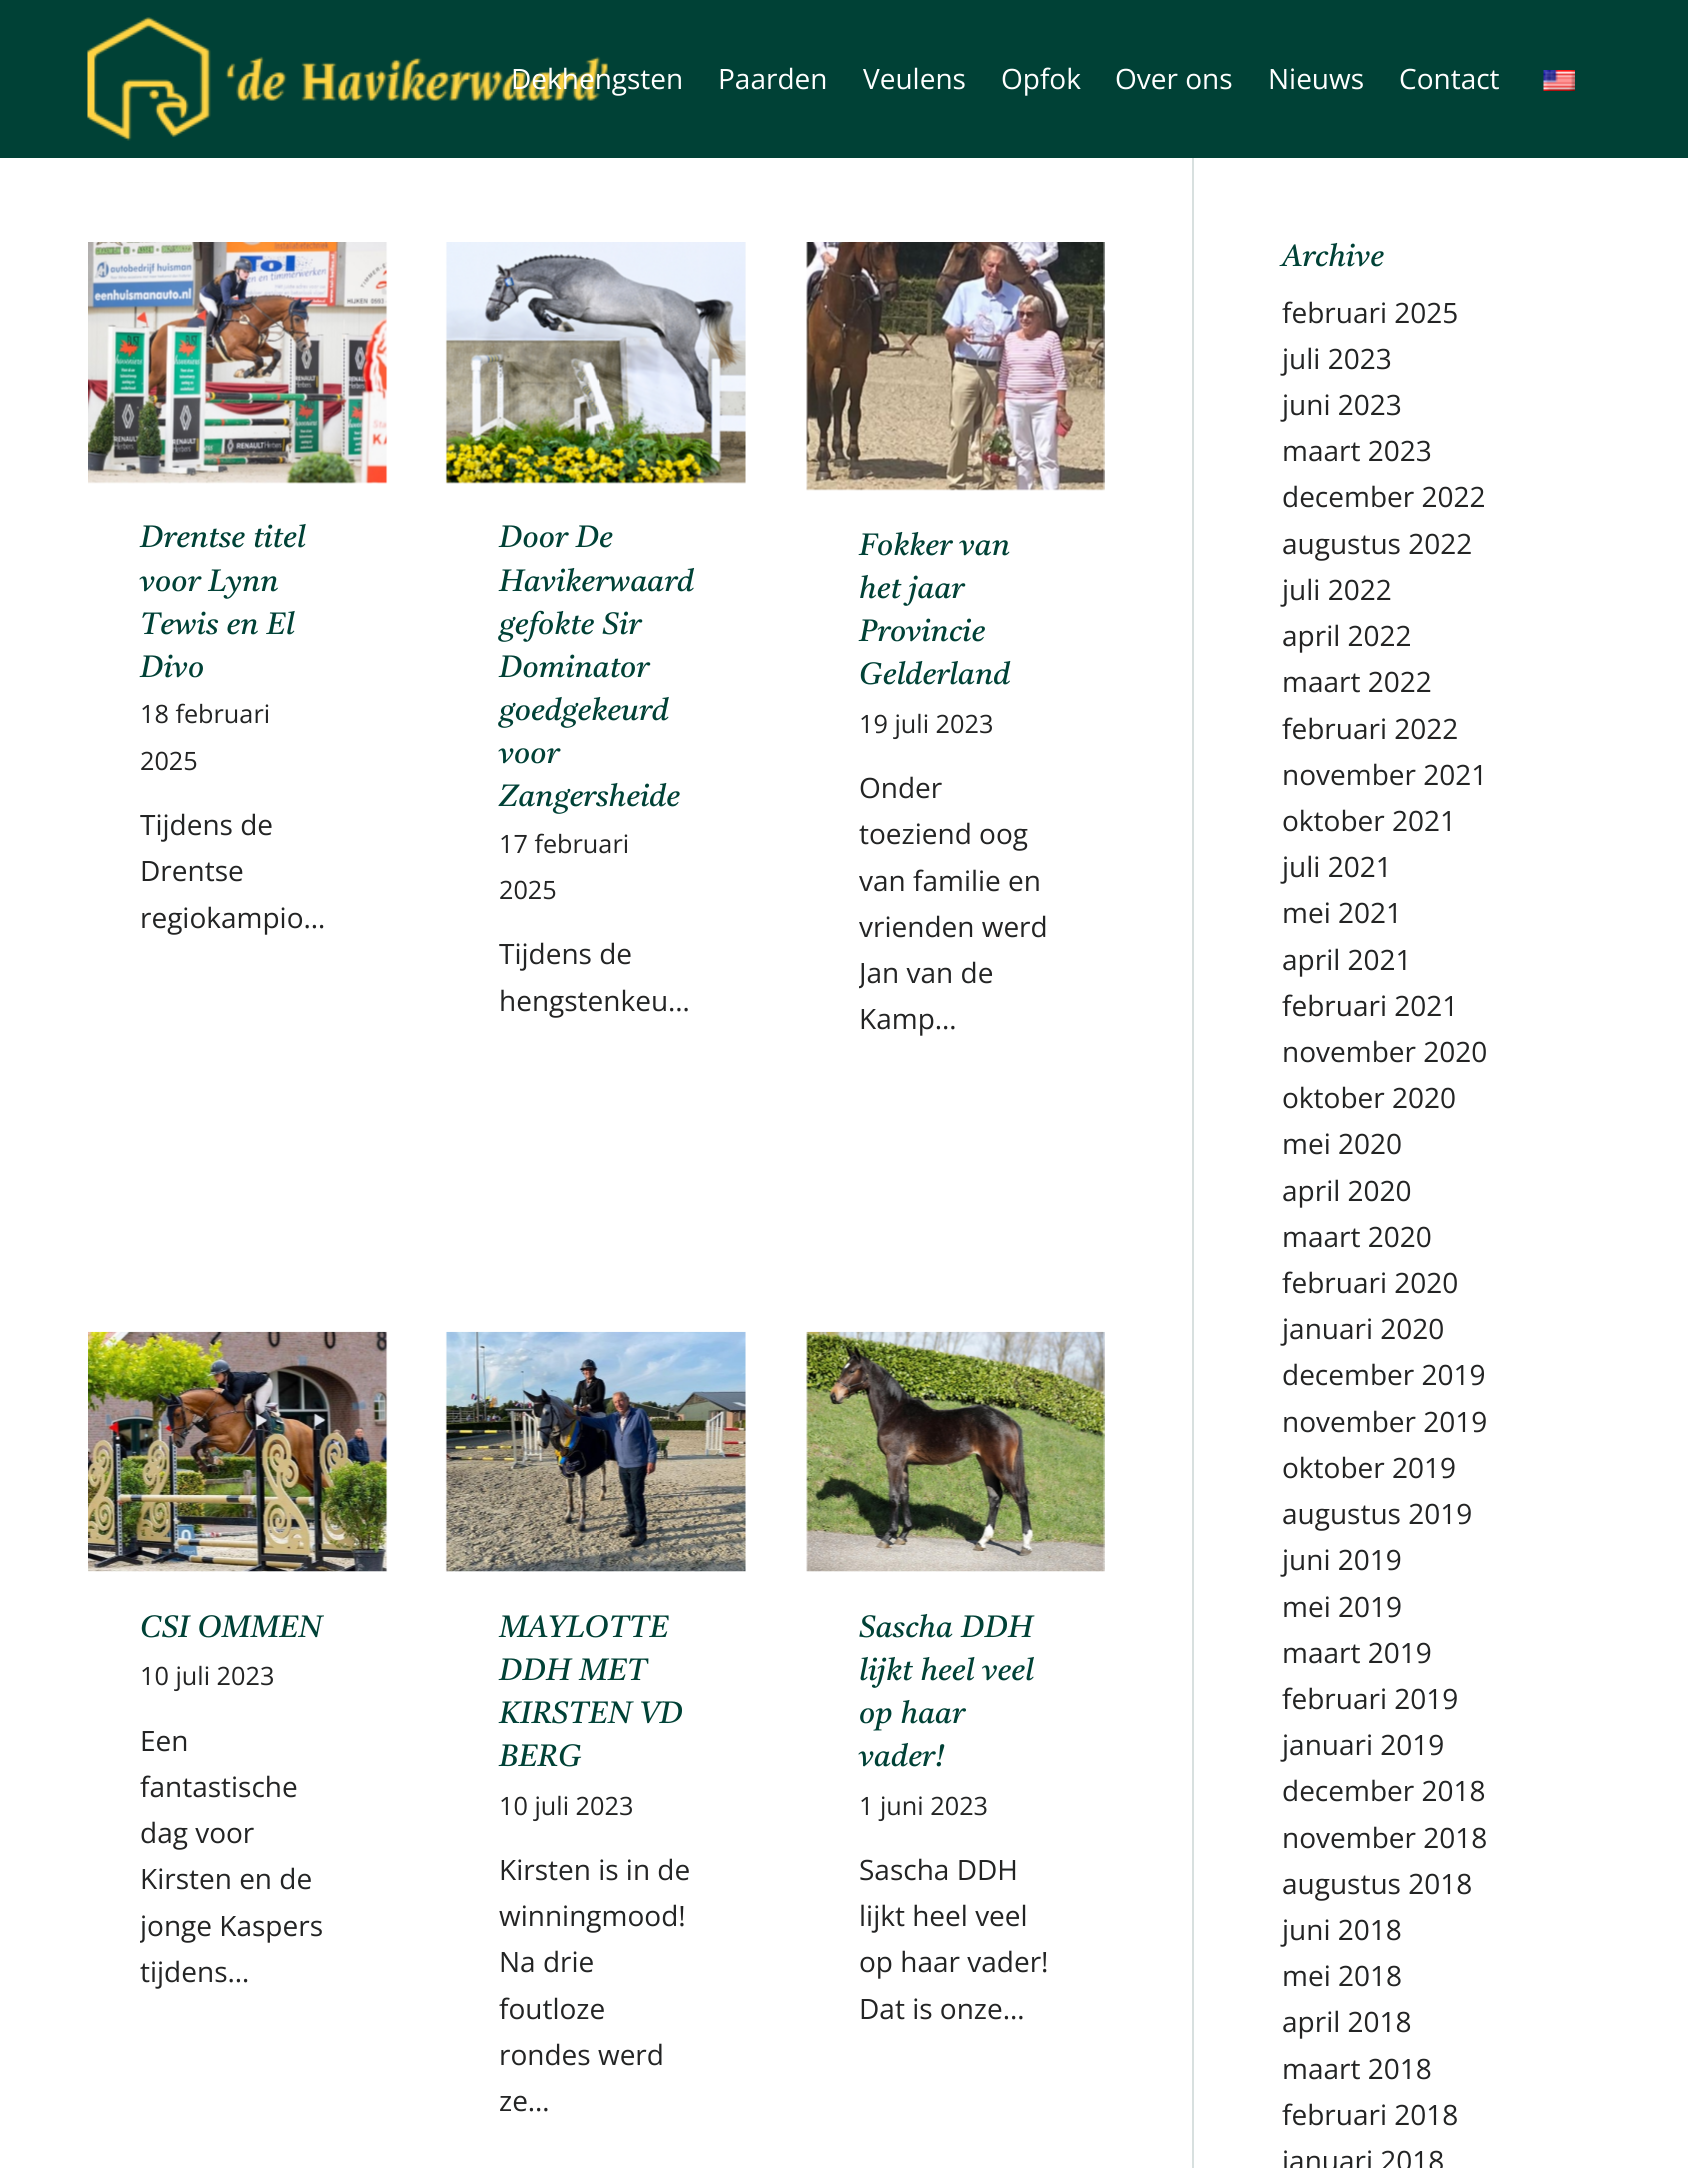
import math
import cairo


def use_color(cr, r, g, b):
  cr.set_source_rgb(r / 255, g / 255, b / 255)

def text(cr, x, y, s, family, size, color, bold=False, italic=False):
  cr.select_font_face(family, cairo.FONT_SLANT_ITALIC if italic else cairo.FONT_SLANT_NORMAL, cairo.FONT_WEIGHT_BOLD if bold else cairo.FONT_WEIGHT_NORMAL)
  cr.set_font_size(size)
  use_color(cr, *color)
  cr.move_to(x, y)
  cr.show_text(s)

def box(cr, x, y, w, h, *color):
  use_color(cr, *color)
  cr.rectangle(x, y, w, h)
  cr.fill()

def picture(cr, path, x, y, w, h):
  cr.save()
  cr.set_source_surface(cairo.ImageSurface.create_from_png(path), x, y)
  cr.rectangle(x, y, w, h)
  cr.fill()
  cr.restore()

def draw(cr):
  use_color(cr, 255, 255, 255)
  cr.paint()
  box(cr, 1192, 154, 2, 2014, 216, 224, 223)
  box(cr, 0, 0, 1688, 158, 0, 65, 54)
  picture(cr, "img_01.png", 87, 17, 521, 124)
  picture(cr, "img_02.png", 1543, 70, 32, 21)
  box(cr, 88, 242, 299, 241, 252, 252, 252)
  picture(cr, "img_03.png", 88, 242, 300, 242)
  box(cr, 446, 242, 300, 241, 252, 252, 252)
  picture(cr, "img_04.png", 445, 242, 301, 242)
  box(cr, 807, 242, 297, 248, 252, 252, 252)
  picture(cr, "img_05.png", 806, 242, 299, 249)
  box(cr, 88, 1332, 299, 240, 252, 252, 252)
  picture(cr, "img_06.png", 88, 1331, 300, 241)
  box(cr, 446, 1332, 300, 240, 252, 252, 252)
  picture(cr, "img_07.png", 445, 1331, 301, 241)
  box(cr, 807, 1332, 297, 240, 252, 252, 252)
  picture(cr, "img_08.png", 806, 1331, 299, 241)
  text(cr, 511, 89, "Dekhengsten", "Open Sans", 28, (255, 255, 255))
  text(cr, 718, 89, "Paarden", "Open Sans", 28, (255, 255, 255))
  text(cr, 863, 89, "Veulens", "Open Sans", 28, (255, 255, 255))
  text(cr, 1001, 89, "Opfok", "Open Sans", 28, (255, 255, 255))
  text(cr, 1115, 89, "Over ons", "Open Sans", 28, (255, 255, 255))
  text(cr, 1268, 89, "Nieuws", "Open Sans", 28, (255, 255, 255))
  text(cr, 1399, 89, "Contact", "Open Sans", 28, (255, 255, 255))
  text(cr, 140, 547, "Drentse titel", "Tiro Telugu", 30.75, (0, 65, 54), italic=True)
  text(cr, 140, 591, "voor Lynn", "Tiro Telugu", 30.75, (0, 65, 54), italic=True)
  text(cr, 140, 634, "Tewis en El", "Tiro Telugu", 30.75, (0, 65, 54), italic=True)
  text(cr, 140, 677, "Divo", "Tiro Telugu", 30.75, (0, 65, 54), italic=True)
  text(cr, 140, 723, "18 februari", "Open Sans", 25.25, (35, 36, 36))
  text(cr, 140, 770, "2025", "Open Sans", 25.25, (35, 36, 36))
  text(cr, 140, 835, "Tijdens de", "Open Sans", 28, (35, 36, 36))
  text(cr, 140, 881, "Drentse", "Open Sans", 28, (35, 36, 36))
  text(cr, 140, 928, "regiokampio…", "Open Sans", 28, (35, 36, 36))
  text(cr, 499, 547, "Door De", "Tiro Telugu", 30.75, (0, 65, 54), italic=True)
  text(cr, 499, 591, "Havikerwaard", "Tiro Telugu", 30.75, (0, 65, 54), italic=True)
  text(cr, 499, 634, "gefokte Sir", "Tiro Telugu", 30.75, (0, 65, 54), italic=True)
  text(cr, 499, 677, "Dominator", "Tiro Telugu", 30.75, (0, 65, 54), italic=True)
  text(cr, 499, 720, "goedgekeurd", "Tiro Telugu", 30.75, (0, 65, 54), italic=True)
  text(cr, 499, 763, "voor", "Tiro Telugu", 30.75, (0, 65, 54), italic=True)
  text(cr, 499, 806, "Zangersheide", "Tiro Telugu", 30.75, (0, 65, 54), italic=True)
  text(cr, 499, 853, "17 februari", "Open Sans", 25.25, (35, 36, 36))
  text(cr, 499, 899, "2025", "Open Sans", 25.25, (35, 36, 36))
  text(cr, 499, 964, "Tijdens de", "Open Sans", 28, (35, 36, 36))
  text(cr, 499, 1011, "hengstenkeu…", "Open Sans", 28, (35, 36, 36))
  text(cr, 859, 555, "Fokker van", "Tiro Telugu", 30.75, (0, 65, 54), italic=True)
  text(cr, 859, 598, "het jaar", "Tiro Telugu", 30.75, (0, 65, 54), italic=True)
  text(cr, 859, 641, "Provincie", "Tiro Telugu", 30.75, (0, 65, 54), italic=True)
  text(cr, 859, 684, "Gelderland", "Tiro Telugu", 30.75, (0, 65, 54), italic=True)
  text(cr, 859, 733, "19 juli 2023", "Open Sans", 25.25, (35, 36, 36))
  text(cr, 859, 798, "Onder", "Open Sans", 28, (35, 36, 36))
  text(cr, 859, 844, "toeziend oog", "Open Sans", 28, (35, 36, 36))
  text(cr, 859, 891, "van familie en", "Open Sans", 28, (35, 36, 36))
  text(cr, 859, 937, "vrienden werd", "Open Sans", 28, (35, 36, 36))
  cr.save()
  cr.rectangle(859, 765, 193, 278)
  cr.clip()
  text(cr, 859, 983, "Jan van de", "Open Sans", 28, (35, 36, 36))
  cr.restore()
  text(cr, 859, 1029, "Kamp…", "Open Sans", 28, (35, 36, 36))
  text(cr, 140, 1637, "CSI OMMEN", "Tiro Telugu", 30.75, (0, 65, 54), italic=True)
  text(cr, 140, 1685, "10 juli 2023", "Open Sans", 25.25, (35, 36, 36))
  text(cr, 140, 1751, "Een", "Open Sans", 28, (35, 36, 36))
  text(cr, 140, 1797, "fantastische", "Open Sans", 28, (35, 36, 36))
  text(cr, 140, 1843, "dag voor", "Open Sans", 28, (35, 36, 36))
  text(cr, 140, 1889, "Kirsten en de", "Open Sans", 28, (35, 36, 36))
  cr.save()
  cr.rectangle(140, 1717, 194, 278)
  cr.clip()
  text(cr, 140, 1936, "jonge Kaspers", "Open Sans", 28, (35, 36, 36))
  cr.restore()
  text(cr, 140, 1982, "tijdens…", "Open Sans", 28, (35, 36, 36))
  text(cr, 499, 1637, "MAYLOTTE", "Tiro Telugu", 30.75, (0, 65, 54), italic=True)
  text(cr, 499, 1680, "DDH MET", "Tiro Telugu", 30.75, (0, 65, 54), italic=True)
  text(cr, 499, 1723, "KIRSTEN VD", "Tiro Telugu", 30.75, (0, 65, 54), italic=True)
  text(cr, 499, 1766, "BERG", "Tiro Telugu", 30.75, (0, 65, 54), italic=True)
  text(cr, 499, 1815, "10 juli 2023", "Open Sans", 25.25, (35, 36, 36))
  text(cr, 499, 1880, "Kirsten is in de", "Open Sans", 28, (35, 36, 36))
  text(cr, 499, 1926, "winningmood!", "Open Sans", 28, (35, 36, 36))
  text(cr, 499, 1972, "Na drie", "Open Sans", 28, (35, 36, 36))
  text(cr, 499, 2019, "foutloze", "Open Sans", 28, (35, 36, 36))
  text(cr, 499, 2065, "rondes werd", "Open Sans", 28, (35, 36, 36))
  text(cr, 499, 2111, "ze…", "Open Sans", 28, (35, 36, 36))
  text(cr, 859, 1637, "Sascha DDH", "Tiro Telugu", 30.75, (0, 65, 54), italic=True)
  text(cr, 859, 1680, "lijkt heel veel", "Tiro Telugu", 30.75, (0, 65, 54), italic=True)
  text(cr, 859, 1723, "op haar", "Tiro Telugu", 30.75, (0, 65, 54), italic=True)
  text(cr, 859, 1766, "vader!", "Tiro Telugu", 30.75, (0, 65, 54), italic=True)
  text(cr, 859, 1815, "1 juni 2023", "Open Sans", 25.25, (35, 36, 36))
  text(cr, 859, 1880, "Sascha DDH", "Open Sans", 28, (35, 36, 36))
  text(cr, 859, 1926, "lijkt heel veel", "Open Sans", 28, (35, 36, 36))
  text(cr, 859, 1972, "op haar vader!", "Open Sans", 28, (35, 36, 36))
  text(cr, 859, 2019, "Dat is onze…", "Open Sans", 28, (35, 36, 36))
  text(cr, 1282, 266, "Archive", "Tiro Telugu", 30.75, (0, 65, 54), italic=True)
  text(cr, 1282, 323, "februari 2025", "Open Sans", 28, (35, 36, 36))
  text(cr, 1282, 369, "juli 2023", "Open Sans", 28, (35, 36, 36))
  text(cr, 1282, 415, "juni 2023", "Open Sans", 28, (35, 36, 36))
  text(cr, 1282, 461, "maart 2023", "Open Sans", 28, (35, 36, 36))
  text(cr, 1282, 507, "december 2022", "Open Sans", 28, (35, 36, 36))
  text(cr, 1282, 554, "augustus 2022", "Open Sans", 28, (35, 36, 36))
  text(cr, 1282, 600, "juli 2022", "Open Sans", 28, (35, 36, 36))
  text(cr, 1282, 646, "april 2022", "Open Sans", 28, (35, 36, 36))
  text(cr, 1282, 692, "maart 2022", "Open Sans", 28, (35, 36, 36))
  text(cr, 1282, 739, "februari 2022", "Open Sans", 28, (35, 36, 36))
  text(cr, 1282, 785, "november 2021", "Open Sans", 28, (35, 36, 36))
  text(cr, 1282, 831, "oktober 2021", "Open Sans", 28, (35, 36, 36))
  text(cr, 1282, 877, "juli 2021", "Open Sans", 28, (35, 36, 36))
  text(cr, 1282, 923, "mei 2021", "Open Sans", 28, (35, 36, 36))
  text(cr, 1282, 970, "april 2021", "Open Sans", 28, (35, 36, 36))
  text(cr, 1282, 1016, "februari 2021", "Open Sans", 28, (35, 36, 36))
  text(cr, 1282, 1062, "november 2020", "Open Sans", 28, (35, 36, 36))
  text(cr, 1282, 1108, "oktober 2020", "Open Sans", 28, (35, 36, 36))
  text(cr, 1282, 1154, "mei 2020", "Open Sans", 28, (35, 36, 36))
  text(cr, 1282, 1201, "april 2020", "Open Sans", 28, (35, 36, 36))
  text(cr, 1282, 1247, "maart 2020", "Open Sans", 28, (35, 36, 36))
  text(cr, 1282, 1293, "februari 2020", "Open Sans", 28, (35, 36, 36))
  text(cr, 1282, 1339, "januari 2020", "Open Sans", 28, (35, 36, 36))
  text(cr, 1282, 1385, "december 2019", "Open Sans", 28, (35, 36, 36))
  text(cr, 1282, 1432, "november 2019", "Open Sans", 28, (35, 36, 36))
  text(cr, 1282, 1478, "oktober 2019", "Open Sans", 28, (35, 36, 36))
  text(cr, 1282, 1524, "augustus 2019", "Open Sans", 28, (35, 36, 36))
  text(cr, 1282, 1570, "juni 2019", "Open Sans", 28, (35, 36, 36))
  text(cr, 1282, 1617, "mei 2019", "Open Sans", 28, (35, 36, 36))
  text(cr, 1282, 1663, "maart 2019", "Open Sans", 28, (35, 36, 36))
  text(cr, 1282, 1709, "februari 2019", "Open Sans", 28, (35, 36, 36))
  text(cr, 1282, 1755, "januari 2019", "Open Sans", 28, (35, 36, 36))
  text(cr, 1282, 1801, "december 2018", "Open Sans", 28, (35, 36, 36))
  text(cr, 1282, 1848, "november 2018", "Open Sans", 28, (35, 36, 36))
  text(cr, 1282, 1894, "augustus 2018", "Open Sans", 28, (35, 36, 36))
  text(cr, 1282, 1940, "juni 2018", "Open Sans", 28, (35, 36, 36))
  text(cr, 1282, 1986, "mei 2018", "Open Sans", 28, (35, 36, 36))
  text(cr, 1282, 2032, "april 2018", "Open Sans", 28, (35, 36, 36))
  text(cr, 1282, 2079, "maart 2018", "Open Sans", 28, (35, 36, 36))
  text(cr, 1282, 2125, "februari 2018", "Open Sans", 28, (35, 36, 36))
  text(cr, 1282, 2171, "januari 2018", "Open Sans", 28, (35, 36, 36))


surface = cairo.ImageSurface(cairo.FORMAT_RGB24, 1688, 2168)
cr = cairo.Context(surface)
options = cairo.FontOptions()
options.set_hint_metrics(cairo.HINT_METRICS_OFF)
options.set_hint_style(cairo.HINT_STYLE_NONE)
cr.set_font_options(options)
cr.set_miter_limit(4)
draw(cr)
surface.write_to_png("out.png")
